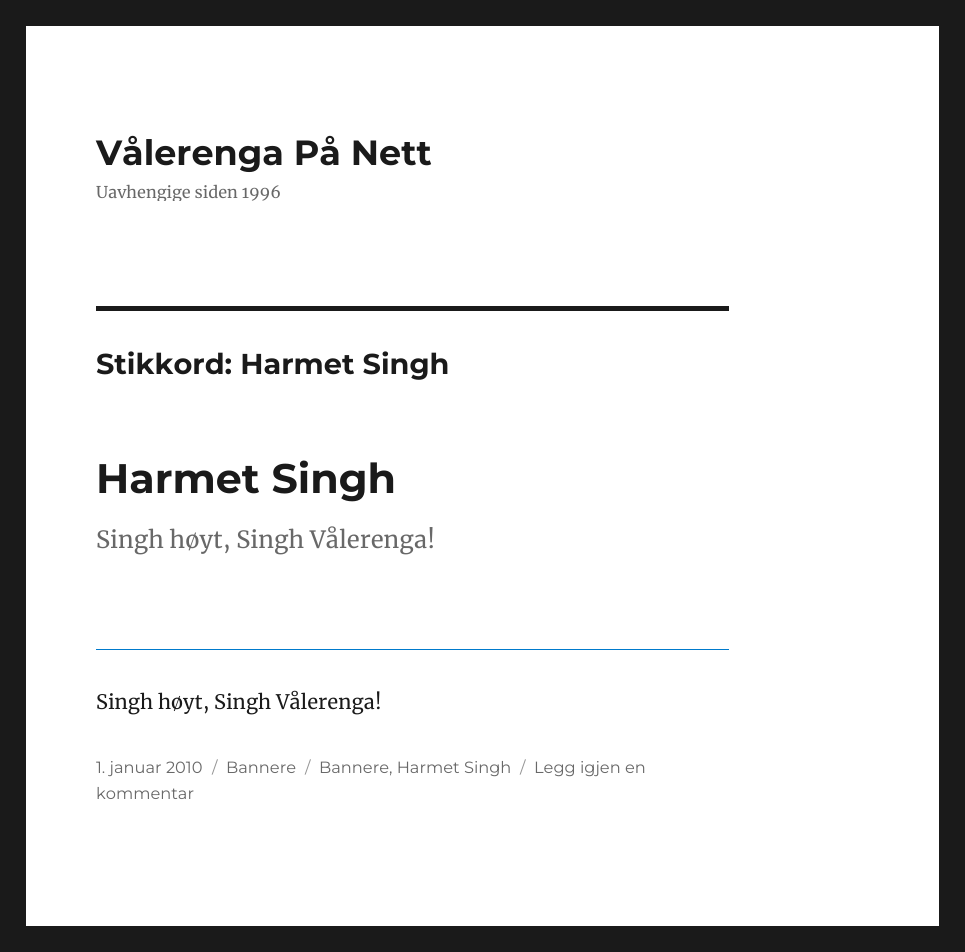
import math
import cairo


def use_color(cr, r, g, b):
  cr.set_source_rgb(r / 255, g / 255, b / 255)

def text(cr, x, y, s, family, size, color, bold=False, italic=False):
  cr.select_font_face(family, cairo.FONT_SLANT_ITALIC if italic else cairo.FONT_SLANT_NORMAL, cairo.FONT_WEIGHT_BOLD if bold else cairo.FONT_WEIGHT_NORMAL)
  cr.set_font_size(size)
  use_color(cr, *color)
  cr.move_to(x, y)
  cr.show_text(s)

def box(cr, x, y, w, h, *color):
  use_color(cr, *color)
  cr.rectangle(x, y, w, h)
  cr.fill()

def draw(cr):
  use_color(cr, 26, 26, 26)
  cr.paint()
  box(cr, 26, 26, 913, 900, 255, 255, 255)
  box(cr, 96, 306, 633, 5, 26, 26, 26)
  use_color(cr, 0, 122, 204)
  cr.new_path()
  cr.move_to(96, 593)
  cr.line_to(96, 650)
  cr.line_to(729, 650)
  cr.line_to(729, 593)
  cr.line_to(729, 649)
  cr.line_to(96, 649)
  cr.close_path()
  cr.fill()
  text(cr, 96, 165, "Vålerenga På Nett", "Montserrat Thin", 35, (26, 26, 26))
  cr.save()
  cr.rectangle(96, 131, 337, 70)
  cr.clip()
  text(cr, 96, 198, "Uavhengige siden 1996", "Merriweather", 16.25, (104, 104, 104))
  cr.restore()
  text(cr, 96, 374, "Stikkord: Harmet Singh", "Montserrat Thin", 28.75, (26, 26, 26))
  text(cr, 96, 493, "Harmet Singh", "Montserrat Thin", 41.25, (26, 26, 26))
  text(cr, 96, 548, "Singh høyt, Singh Vålerenga!", "Merriweather", 23.75, (104, 104, 104))
  text(cr, 96, 709, "Singh høyt, Singh Vålerenga!", "Merriweather", 20, (26, 26, 26))
  text(cr, 96, 773, "1. januar 2010", "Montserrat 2 Thin", 16.25, (104, 104, 104))
  text(cr, 212, 773, "/", "Montserrat 2 Thin", 16.25, (149, 149, 149))
  text(cr, 226, 773, "Bannere", "Montserrat 2 Thin", 16.25, (104, 104, 104))
  text(cr, 305, 773, "/", "Montserrat 2 Thin", 16.25, (149, 149, 149))
  text(cr, 319, 773, "Bannere, Harmet Singh", "Montserrat 2 Thin", 16.25, (104, 104, 104))
  text(cr, 520, 773, "/", "Montserrat 2 Thin", 16.25, (149, 149, 149))
  text(cr, 534, 773, "Legg igjen en", "Montserrat 2 Thin", 16.25, (104, 104, 104))
  text(cr, 96, 799, "kommentar", "Montserrat 2 Thin", 16.25, (104, 104, 104))


surface = cairo.ImageSurface(cairo.FORMAT_RGB24, 965, 952)
cr = cairo.Context(surface)
options = cairo.FontOptions()
options.set_hint_metrics(cairo.HINT_METRICS_OFF)
options.set_hint_style(cairo.HINT_STYLE_NONE)
cr.set_font_options(options)
cr.set_miter_limit(4)
draw(cr)
surface.write_to_png("out.png")
